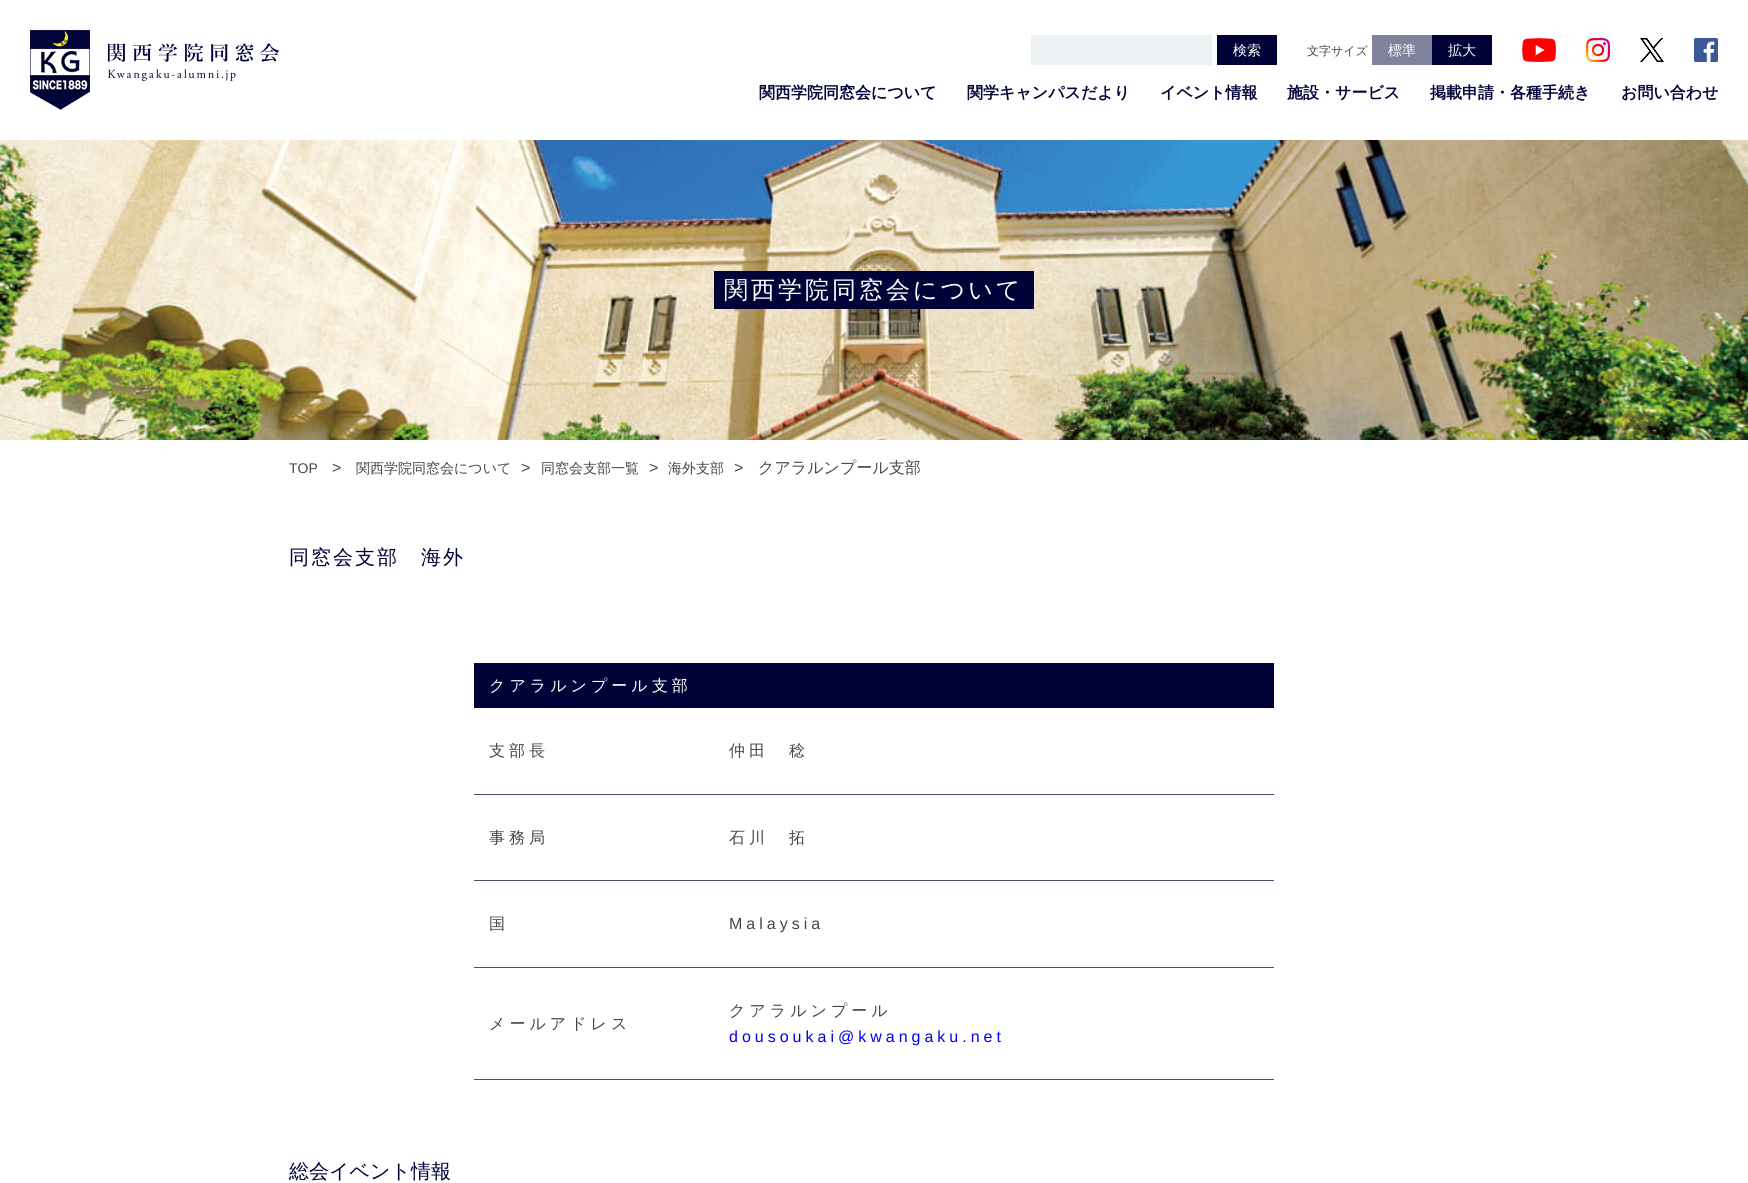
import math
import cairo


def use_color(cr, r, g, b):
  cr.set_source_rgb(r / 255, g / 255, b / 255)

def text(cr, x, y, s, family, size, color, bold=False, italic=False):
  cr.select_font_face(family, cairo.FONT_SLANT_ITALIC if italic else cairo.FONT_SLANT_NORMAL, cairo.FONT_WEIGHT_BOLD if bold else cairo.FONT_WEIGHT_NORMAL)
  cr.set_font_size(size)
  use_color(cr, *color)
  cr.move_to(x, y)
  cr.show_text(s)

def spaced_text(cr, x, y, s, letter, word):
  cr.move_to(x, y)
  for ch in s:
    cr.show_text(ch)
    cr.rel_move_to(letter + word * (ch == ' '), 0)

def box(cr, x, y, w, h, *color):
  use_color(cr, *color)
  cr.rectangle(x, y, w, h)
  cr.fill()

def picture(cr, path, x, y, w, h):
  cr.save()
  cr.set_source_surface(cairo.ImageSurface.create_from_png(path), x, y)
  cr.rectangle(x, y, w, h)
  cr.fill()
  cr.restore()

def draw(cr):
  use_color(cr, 255, 255, 255)
  cr.paint()
  picture(cr, "img_01.png", 30, 30, 249, 80)
  box(cr, 1031, 35, 181, 30, 236, 241, 243)
  box(cr, 1217, 35, 60, 30, 1, 2, 56)
  box(cr, 1372, 35, 60, 30, 128, 129, 156)
  box(cr, 1432, 35, 60, 30, 1, 2, 56)
  picture(cr, "img_02.png", 1522, 38, 34, 24)
  picture(cr, "img_03.png", 1586, 38, 24, 24)
  picture(cr, "img_04.png", 1640, 38, 24, 24)
  picture(cr, "img_05.png", 1694, 38, 24, 24)
  picture(cr, "img_06.png", 0, 140, 1748, 300)
  box(cr, 714, 271, 320, 38, 1, 2, 56)
  box(cr, 474, 663, 800, 45, 1, 2, 56)
  box(cr, 474, 794, 800, 1, 80, 74, 117)
  box(cr, 474, 880, 800, 1, 80, 74, 117)
  box(cr, 474, 967, 800, 1, 80, 74, 117)
  box(cr, 474, 1079, 800, 1, 80, 74, 117)
  text(cr, 1233, 55, "検索", "WenQuanYi Zen Hei Medium", 14, (255, 255, 255))
  text(cr, 1307, 55, "文字サイズ", "WenQuanYi Zen Hei Medium", 12, (70, 70, 70))
  text(cr, 1388, 55, "標準", "WenQuanYi Zen Hei Medium", 14, (255, 255, 255))
  text(cr, 1448, 55, "拡大", "WenQuanYi Zen Hei Medium", 14, (255, 255, 255))
  text(cr, 759, 98, "関西学院同窓会について", "WenQuanYi Zen Hei", 16, (1, 2, 56), bold=True)
  text(cr, 967, 98, "関学キャンパスだより", "WenQuanYi Zen Hei", 16, (1, 2, 56), bold=True)
  text(cr, 1160, 98, "イベント情報", "WenQuanYi Zen Hei", 16, (1, 2, 56), bold=True)
  text(cr, 1287, 98, "施設・サービス", "WenQuanYi Zen Hei", 16, (1, 2, 56), bold=True)
  text(cr, 1430, 98, "掲載申請・各種手続き", "WenQuanYi Zen Hei", 16, (1, 2, 56), bold=True)
  text(cr, 1621, 98, "お問い合わせ", "WenQuanYi Zen Hei", 16, (1, 2, 56), bold=True)
  cr.select_font_face("WenQuanYi Zen Hei Medium")
  cr.set_font_size(24)
  use_color(cr, 255, 255, 255)
  spaced_text(cr, 724, 298, "関西学院同窓会について", 3, 0)
  text(cr, 289, 473, "TOP", "Liberation Sans", 14, (70, 70, 70))
  text(cr, 332, 473, ">", "Liberation Sans", 16, (70, 70, 70))
  text(cr, 356, 473, "関西学院同窓会について", "WenQuanYi Zen Hei Medium", 14, (70, 70, 70))
  text(cr, 521, 473, ">", "Liberation Sans", 16, (70, 70, 70))
  text(cr, 541, 473, "同窓会支部一覧", "WenQuanYi Zen Hei Medium", 14, (70, 70, 70))
  text(cr, 649, 473, ">", "Liberation Sans", 16, (70, 70, 70))
  text(cr, 668, 473, "海外支部", "WenQuanYi Zen Hei Medium", 14, (70, 70, 70))
  text(cr, 734, 473, ">", "Liberation Sans", 16, (70, 70, 70))
  text(cr, 758, 473, "クアラルンプール支部", "WenQuanYi Zen Hei Medium", 16, (70, 70, 70))
  cr.set_font_size(20)
  use_color(cr, 1, 2, 56)
  spaced_text(cr, 289, 564, "同窓会支部　海外", 2, 0)
  cr.set_font_size(16)
  use_color(cr, 255, 255, 255)
  spaced_text(cr, 489, 691, "クアラルンプール支部", 4, 0)
  use_color(cr, 70, 70, 70)
  spaced_text(cr, 489, 756, "支部長", 4, 0)
  spaced_text(cr, 729, 756, "仲田　稔", 4, 0)
  spaced_text(cr, 489, 843, "事務局", 4, 0)
  spaced_text(cr, 729, 843, "石川　拓", 4, 0)
  spaced_text(cr, 489, 929, "国", 4, 0)
  cr.select_font_face("Liberation Sans")
  spaced_text(cr, 729, 929, "Malaysia", 4, 0)
  cr.select_font_face("WenQuanYi Zen Hei Medium")
  spaced_text(cr, 489, 1029, "メールアドレス", 4, 0)
  spaced_text(cr, 729, 1016, "クアラルンプール", 4, 0)
  cr.select_font_face("Liberation Sans")
  use_color(cr, 0, 0, 238)
  spaced_text(cr, 729, 1042, "dousoukai@kwangaku.net", 4, 0)
  text(cr, 289, 1178, "総会イベント情報", "WenQuanYi Zen Hei Medium", 20, (1, 2, 56))


surface = cairo.ImageSurface(cairo.FORMAT_RGB24, 1748, 1183)
cr = cairo.Context(surface)
options = cairo.FontOptions()
options.set_hint_metrics(cairo.HINT_METRICS_OFF)
options.set_hint_style(cairo.HINT_STYLE_NONE)
cr.set_font_options(options)
cr.set_miter_limit(4)
draw(cr)
surface.write_to_png("out.png")
